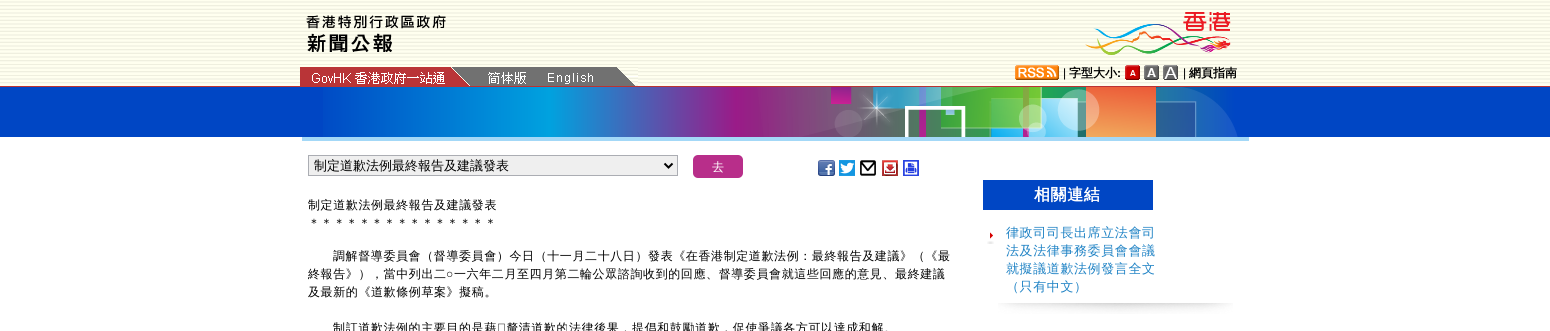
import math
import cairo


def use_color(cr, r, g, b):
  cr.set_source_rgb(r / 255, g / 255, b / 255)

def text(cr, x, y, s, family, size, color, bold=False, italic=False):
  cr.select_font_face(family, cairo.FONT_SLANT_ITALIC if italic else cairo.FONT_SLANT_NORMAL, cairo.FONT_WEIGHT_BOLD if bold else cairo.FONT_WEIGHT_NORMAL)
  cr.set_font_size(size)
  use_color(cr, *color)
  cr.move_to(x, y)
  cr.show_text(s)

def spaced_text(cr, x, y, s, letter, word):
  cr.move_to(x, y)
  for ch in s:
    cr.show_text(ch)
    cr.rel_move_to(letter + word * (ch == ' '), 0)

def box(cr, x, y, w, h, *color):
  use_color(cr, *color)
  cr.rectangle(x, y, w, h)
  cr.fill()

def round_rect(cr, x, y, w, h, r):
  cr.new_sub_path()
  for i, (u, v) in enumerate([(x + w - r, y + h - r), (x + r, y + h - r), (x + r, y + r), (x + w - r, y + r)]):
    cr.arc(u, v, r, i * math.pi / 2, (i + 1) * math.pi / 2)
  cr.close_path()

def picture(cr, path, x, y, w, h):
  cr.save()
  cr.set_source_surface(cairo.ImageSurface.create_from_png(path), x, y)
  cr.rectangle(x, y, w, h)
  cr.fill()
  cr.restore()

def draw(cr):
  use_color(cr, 255, 255, 255)
  cr.paint()
  picture(cr, "img_01.png", 0, 0, 1550, 86)
  box(cr, 0, 86, 1550, 1, 187, 51, 51)
  picture(cr, "img_02.png", 306, 15, 140, 37)
  picture(cr, "img_03.png", 1085, 12, 146, 43)
  box(cr, 470, 67, 147, 19, 113, 113, 113)
  picture(cr, "img_04.png", 300, 67, 170, 19)
  picture(cr, "img_05.png", 312, 72, 133, 12)
  picture(cr, "img_06.png", 488, 72, 38, 12)
  picture(cr, "img_07.png", 617, 67, 21, 19)
  picture(cr, "img_08.png", 548, 73, 45, 11)
  picture(cr, "img_09.png", 1015, 65, 44, 15)
  picture(cr, "img_10.png", 1125, 65, 15, 15)
  picture(cr, "img_11.png", 1144, 65, 15, 15)
  picture(cr, "img_12.png", 1163, 65, 15, 15)
  box(cr, 0, 87, 1550, 50, 0, 70, 196)
  picture(cr, "img_13.png", 323, 87, 915, 50)
  box(cr, 302, 137, 947, 4, 163, 216, 247)
  use_color(cr, 239, 239, 239)
  cr.rectangle(308.5, 155.5, 369, 20)
  cr.fill_preserve()
  use_color(cr, 171, 173, 179)
  cr.set_line_width(1)
  cr.stroke()
  cr.new_path()
  cr.move_to(664.5, 163.5)
  cr.line_to(668.5, 167.5)
  cr.line_to(672.5, 163.5)
  use_color(cr, 0, 0, 0)
  cr.set_line_width(2)
  cr.stroke()
  use_color(cr, 184, 46, 138)
  round_rect(cr, 693, 155, 50, 23, 5)
  cr.fill()
  picture(cr, "img_14.png", 818, 160, 17, 16)
  picture(cr, "img_15.png", 839, 160, 16, 16)
  picture(cr, "img_16.png", 860, 160, 16, 16)
  picture(cr, "img_17.png", 882, 160, 16, 16)
  picture(cr, "img_18.png", 903, 160, 16, 16)
  picture(cr, "img_19.png", 498, 323, 7, 8)
  box(cr, 983, 180, 170, 30, 0, 70, 196)
  picture(cr, "img_20.png", 987, 232, 7, 12)
  picture(cr, "img_21.png", 998, 303, 235, 11)
  text(cr, 1063, 77, "|", "Liberation Sans", 12, (0, 0, 0))
  text(cr, 1069, 77, "字型大小", "WenQuanYi Zen Hei", 12, (0, 0, 0), bold=True)
  text(cr, 1117, 77, ":", "Liberation Sans", 12, (0, 0, 0), bold=True)
  text(cr, 1183, 77, "|", "Liberation Sans", 12, (0, 0, 0))
  text(cr, 1189, 77, "網頁指南", "WenQuanYi Zen Hei", 12, (0, 0, 0), bold=True)
  text(cr, 314, 170, "制定道歉法例最終報告及建議發表", "WenQuanYi Zen Hei Medium", 13, (0, 0, 0))
  text(cr, 712, 171, "去", "WenQuanYi Zen Hei Medium", 12, (255, 255, 255))
  use_color(cr, 0, 0, 0)
  spaced_text(cr, 308, 209, "制定道歉法例最終報告及建議發表", 0.6, 0)
  spaced_text(cr, 308, 227, "＊＊＊＊＊＊＊＊＊＊＊＊＊＊＊", 0.6, 0)
  spaced_text(cr, 333, 260, "調解督導委員會（督導委員會）今日（十一月二十八日）發表《在香港制定道歉法例：最終報告及建議》（《最", 0.6, 0)
  cr.save()
  cr.rectangle(308, 155, 650, 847)
  cr.clip()
  spaced_text(cr, 308, 278, "終報告》），當中列出二", 0.6, 0)
  cr.restore()
  cr.select_font_face("Liberation Sans")
  spaced_text(cr, 446, 278, "○", 0.6, 0)
  cr.select_font_face("WenQuanYi Zen Hei Medium")
  spaced_text(cr, 454, 278, "一六年二月至四月第二輪公眾諮詢收到的回應、督導委員會就這些回應的意見、最終建議", 0.6, 0)
  spaced_text(cr, 308, 296, "及最新的《道歉條例草案》擬稿。", 0.6, 0)
  spaced_text(cr, 333, 332, "制訂道歉法例的主要目的是藉", 0.6, 0)
  spaced_text(cr, 506, 332, "釐清道歉的法律後果，提倡和鼓勵道歉，促使爭議各方可以達成和解。", 0.6, 0)
  cr.select_font_face("WenQuanYi Zen Hei", cairo.FONT_SLANT_NORMAL, cairo.FONT_WEIGHT_BOLD)
  cr.set_font_size(16)
  use_color(cr, 255, 255, 255)
  spaced_text(cr, 1034, 200, "相關連結", 0.6, 0)
  cr.select_font_face("WenQuanYi Zen Hei Medium")
  cr.set_font_size(13)
  use_color(cr, 32, 131, 197)
  spaced_text(cr, 1006, 237, "律政司司長出席立法會司", 0.6, 0)
  spaced_text(cr, 1006, 255, "法及法律事務委員會會議", 0.6, 0)
  spaced_text(cr, 1006, 273, "就擬議道歉法例發言全文", 0.6, 0)
  spaced_text(cr, 1006, 291, "（只有中文）", 0.6, 0)


surface = cairo.ImageSurface(cairo.FORMAT_RGB24, 1550, 331)
cr = cairo.Context(surface)
options = cairo.FontOptions()
options.set_hint_metrics(cairo.HINT_METRICS_OFF)
options.set_hint_style(cairo.HINT_STYLE_NONE)
cr.set_font_options(options)
cr.set_miter_limit(4)
draw(cr)
surface.write_to_png("out.png")
